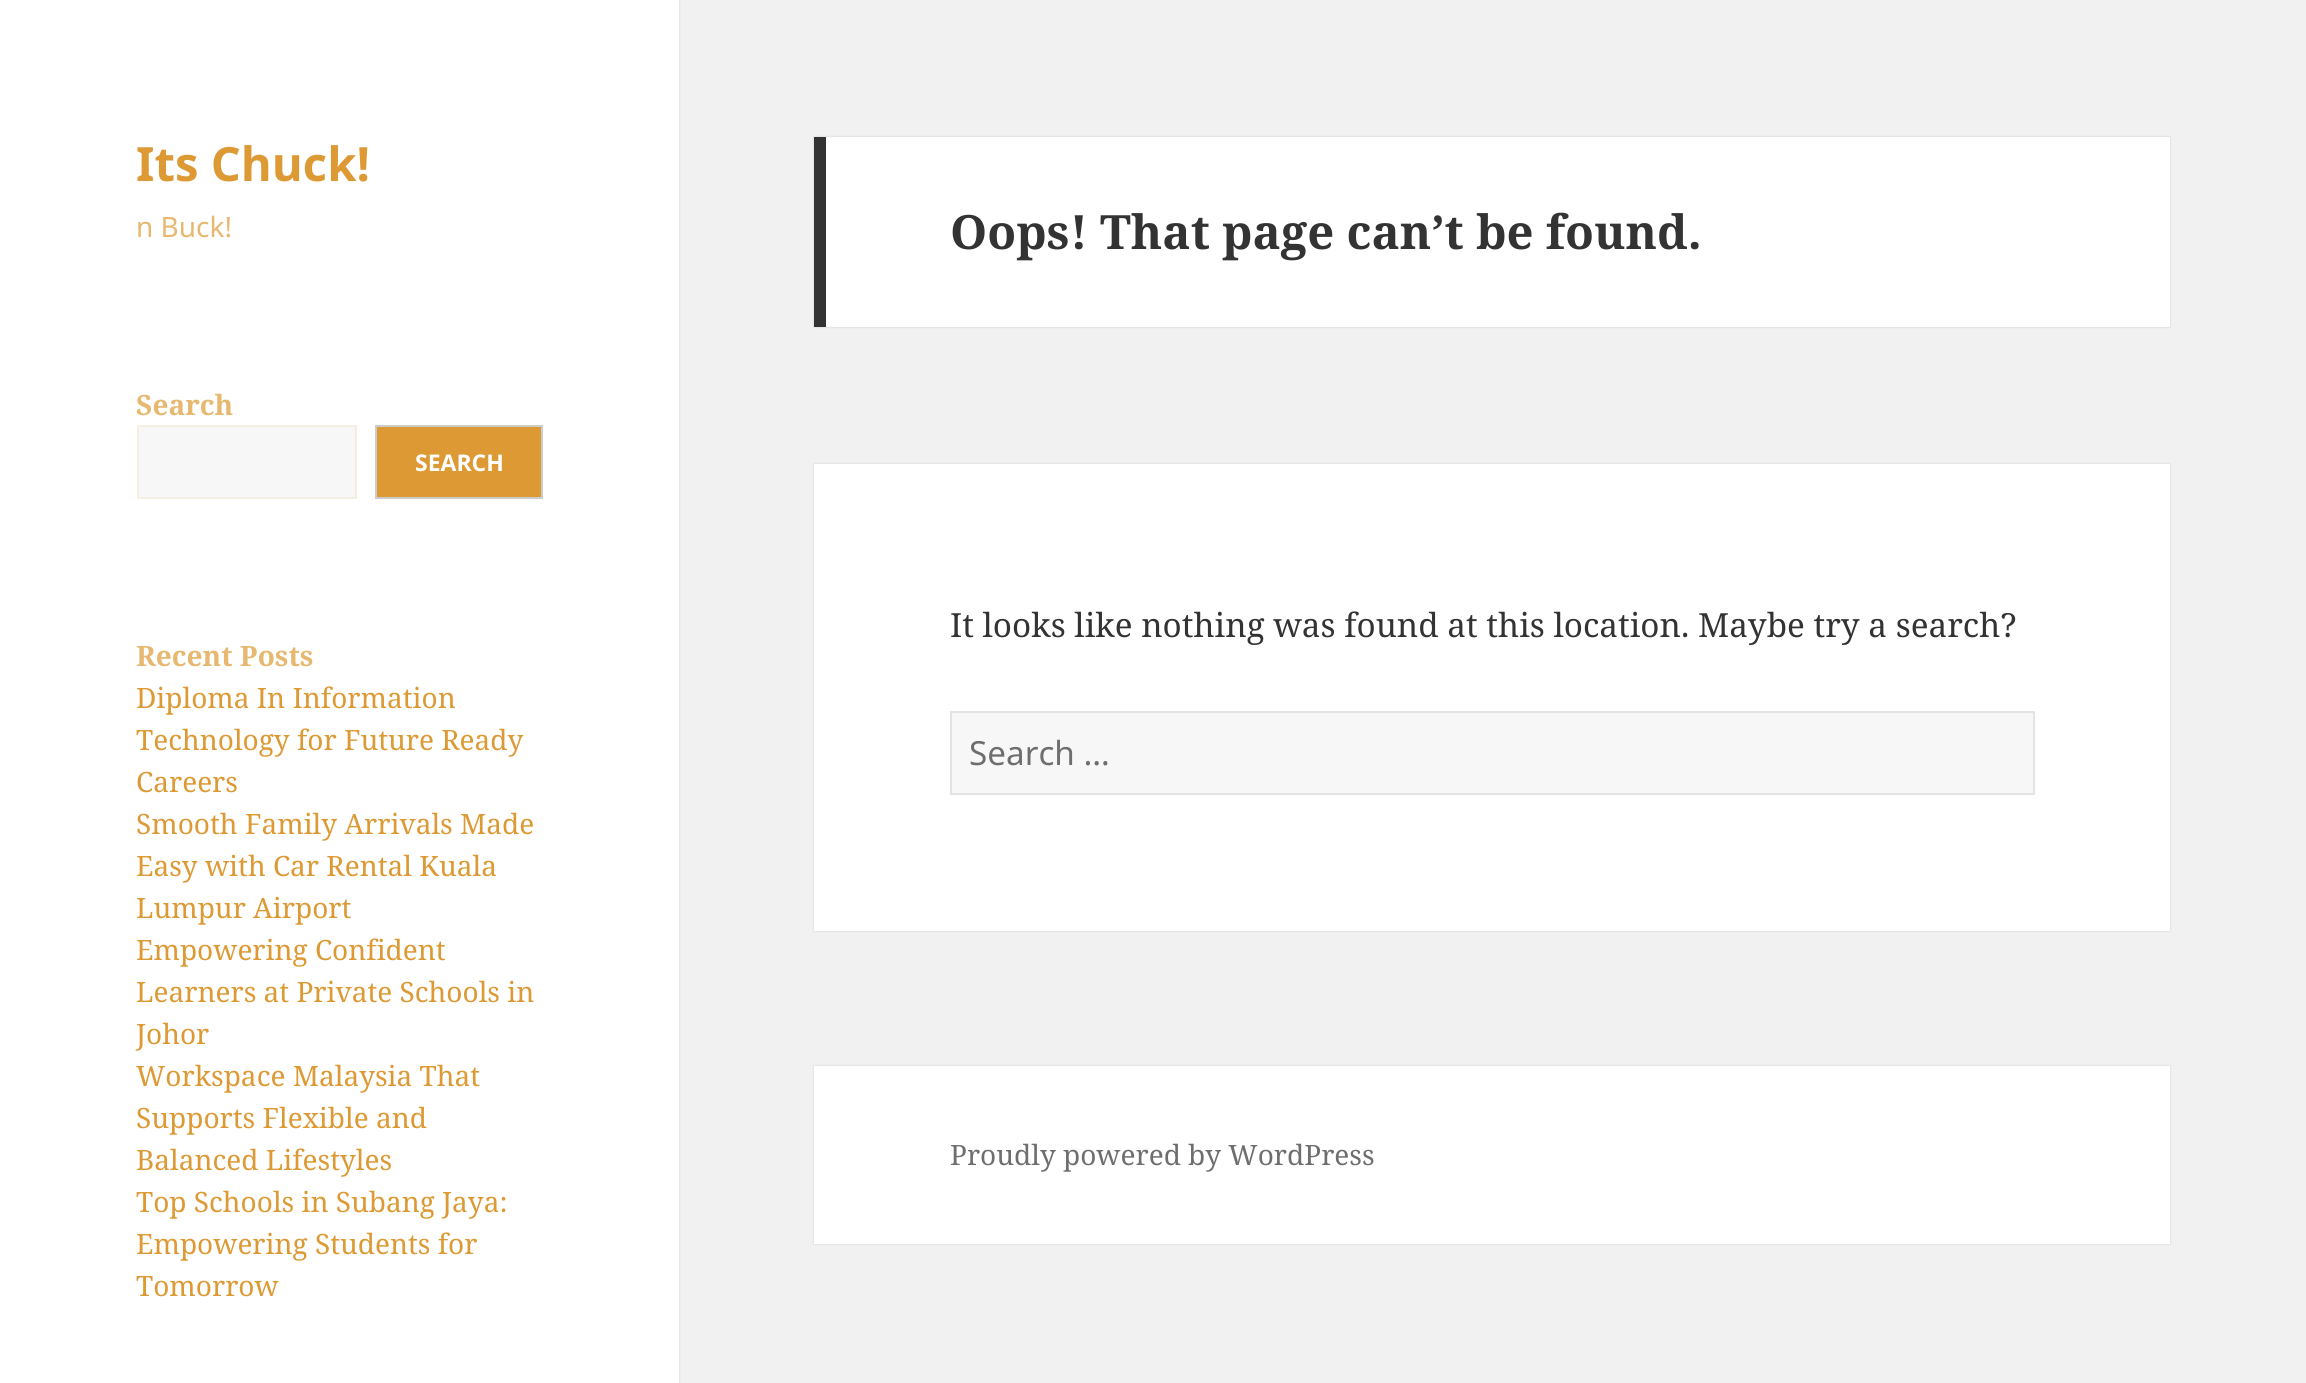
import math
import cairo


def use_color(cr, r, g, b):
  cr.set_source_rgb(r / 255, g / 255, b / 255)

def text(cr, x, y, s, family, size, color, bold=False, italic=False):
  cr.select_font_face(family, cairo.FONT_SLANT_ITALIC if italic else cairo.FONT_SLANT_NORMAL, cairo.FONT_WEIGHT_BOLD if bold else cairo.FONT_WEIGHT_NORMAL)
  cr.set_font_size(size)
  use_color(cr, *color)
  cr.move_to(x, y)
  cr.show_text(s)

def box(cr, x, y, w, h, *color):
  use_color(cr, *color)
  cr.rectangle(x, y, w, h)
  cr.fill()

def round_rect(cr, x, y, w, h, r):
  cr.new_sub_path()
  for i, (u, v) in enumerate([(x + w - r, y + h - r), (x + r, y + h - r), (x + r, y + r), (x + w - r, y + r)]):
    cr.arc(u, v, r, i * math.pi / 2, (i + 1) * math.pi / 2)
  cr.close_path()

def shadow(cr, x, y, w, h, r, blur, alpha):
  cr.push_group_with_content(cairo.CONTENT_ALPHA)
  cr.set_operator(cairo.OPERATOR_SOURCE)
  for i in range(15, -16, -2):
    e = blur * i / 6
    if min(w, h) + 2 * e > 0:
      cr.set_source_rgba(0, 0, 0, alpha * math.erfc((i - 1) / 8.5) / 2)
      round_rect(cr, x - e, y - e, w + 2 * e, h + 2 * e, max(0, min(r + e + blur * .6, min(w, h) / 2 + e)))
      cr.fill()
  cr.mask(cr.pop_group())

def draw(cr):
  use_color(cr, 241, 241, 241)
  cr.paint()
  use_color(cr, 0, 0, 0)
  shadow(cr, 0, 0, 679, 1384, 0, 1, 0.15)
  box(cr, 0, 0, 679, 1383, 255, 255, 255)
  use_color(cr, 247, 247, 247)
  cr.rectangle(138, 426, 218, 72)
  cr.fill_preserve()
  use_color(cr, 244, 238, 227)
  cr.stroke()
  use_color(cr, 221, 153, 51)
  cr.rectangle(376, 426, 166, 72)
  cr.fill_preserve()
  use_color(cr, 204, 204, 204)
  cr.stroke()
  use_color(cr, 0, 0, 0)
  shadow(cr, 814, 137, 1356, 190, 0, 1, 0.15)
  box(cr, 826, 137, 1344, 190, 255, 255, 255)
  box(cr, 814, 137, 12, 190, 51, 51, 51)
  use_color(cr, 0, 0, 0)
  shadow(cr, 814, 464, 1356, 467, 0, 1, 0.15)
  box(cr, 814, 464, 1356, 467, 255, 255, 255)
  use_color(cr, 247, 247, 247)
  cr.rectangle(951, 712, 1083, 82)
  cr.fill_preserve()
  use_color(cr, 227, 227, 227)
  cr.stroke()
  use_color(cr, 0, 0, 0)
  shadow(cr, 814, 1066, 1356, 178, 0, 1, 0.15)
  box(cr, 814, 1066, 1356, 178, 255, 255, 255)
  text(cr, 136, 181, "Its Chuck!", "Noto Sans", 47.25, (221, 153, 51), bold=True)
  text(cr, 136, 237, "n Buck!", "Noto Sans", 28, (231, 184, 112))
  text(cr, 136, 415, "Search", "Noto Serif", 28, (231, 184, 112), bold=True)
  text(cr, 415, 471, "SEARCH", "Noto Sans", 23, (255, 255, 255), bold=True)
  text(cr, 136, 666, "Recent Posts", "Noto Serif", 28, (231, 184, 112), bold=True)
  text(cr, 136, 708, "Diploma In Information", "Noto Serif", 28, (221, 153, 51))
  text(cr, 136, 750, "Technology for Future Ready", "Noto Serif", 28, (221, 153, 51))
  text(cr, 136, 792, "Careers", "Noto Serif", 28, (221, 153, 51))
  text(cr, 136, 834, "Smooth Family Arrivals Made", "Noto Serif", 28, (221, 153, 51))
  text(cr, 136, 876, "Easy with Car Rental Kuala", "Noto Serif", 28, (221, 153, 51))
  text(cr, 136, 918, "Lumpur Airport", "Noto Serif", 28, (221, 153, 51))
  text(cr, 136, 960, "Empowering Confident", "Noto Serif", 28, (221, 153, 51))
  text(cr, 136, 1002, "Learners at Private Schools in", "Noto Serif", 28, (221, 153, 51))
  text(cr, 136, 1044, "Johor", "Noto Serif", 28, (221, 153, 51))
  text(cr, 136, 1086, "Workspace Malaysia That", "Noto Serif", 28, (221, 153, 51))
  text(cr, 136, 1128, "Supports Flexible and", "Noto Serif", 28, (221, 153, 51))
  text(cr, 136, 1170, "Balanced Lifestyles", "Noto Serif", 28, (221, 153, 51))
  text(cr, 136, 1212, "Top Schools in Subang Jaya:", "Noto Serif", 28, (221, 153, 51))
  text(cr, 136, 1254, "Empowering Students for", "Noto Serif", 28, (221, 153, 51))
  text(cr, 136, 1296, "Tomorrow", "Noto Serif", 28, (221, 153, 51))
  text(cr, 950, 249, "Oops! That page can’t be found.", "Noto Serif", 47.25, (51, 51, 51), bold=True)
  text(cr, 950, 637, "It looks like nothing was found at this location. Maybe try a search?", "Noto Serif", 33.25, (51, 51, 51))
  text(cr, 969, 765, "Search …", "Noto Sans", 33.25, (110, 110, 110))
  text(cr, 950, 1165, "Proudly powered by WordPress", "Noto Serif", 28, (110, 110, 110))


surface = cairo.ImageSurface(cairo.FORMAT_RGB24, 2306, 1383)
cr = cairo.Context(surface)
options = cairo.FontOptions()
options.set_hint_metrics(cairo.HINT_METRICS_OFF)
options.set_hint_style(cairo.HINT_STYLE_NONE)
cr.set_font_options(options)
cr.set_miter_limit(4)
draw(cr)
surface.write_to_png("out.png")
